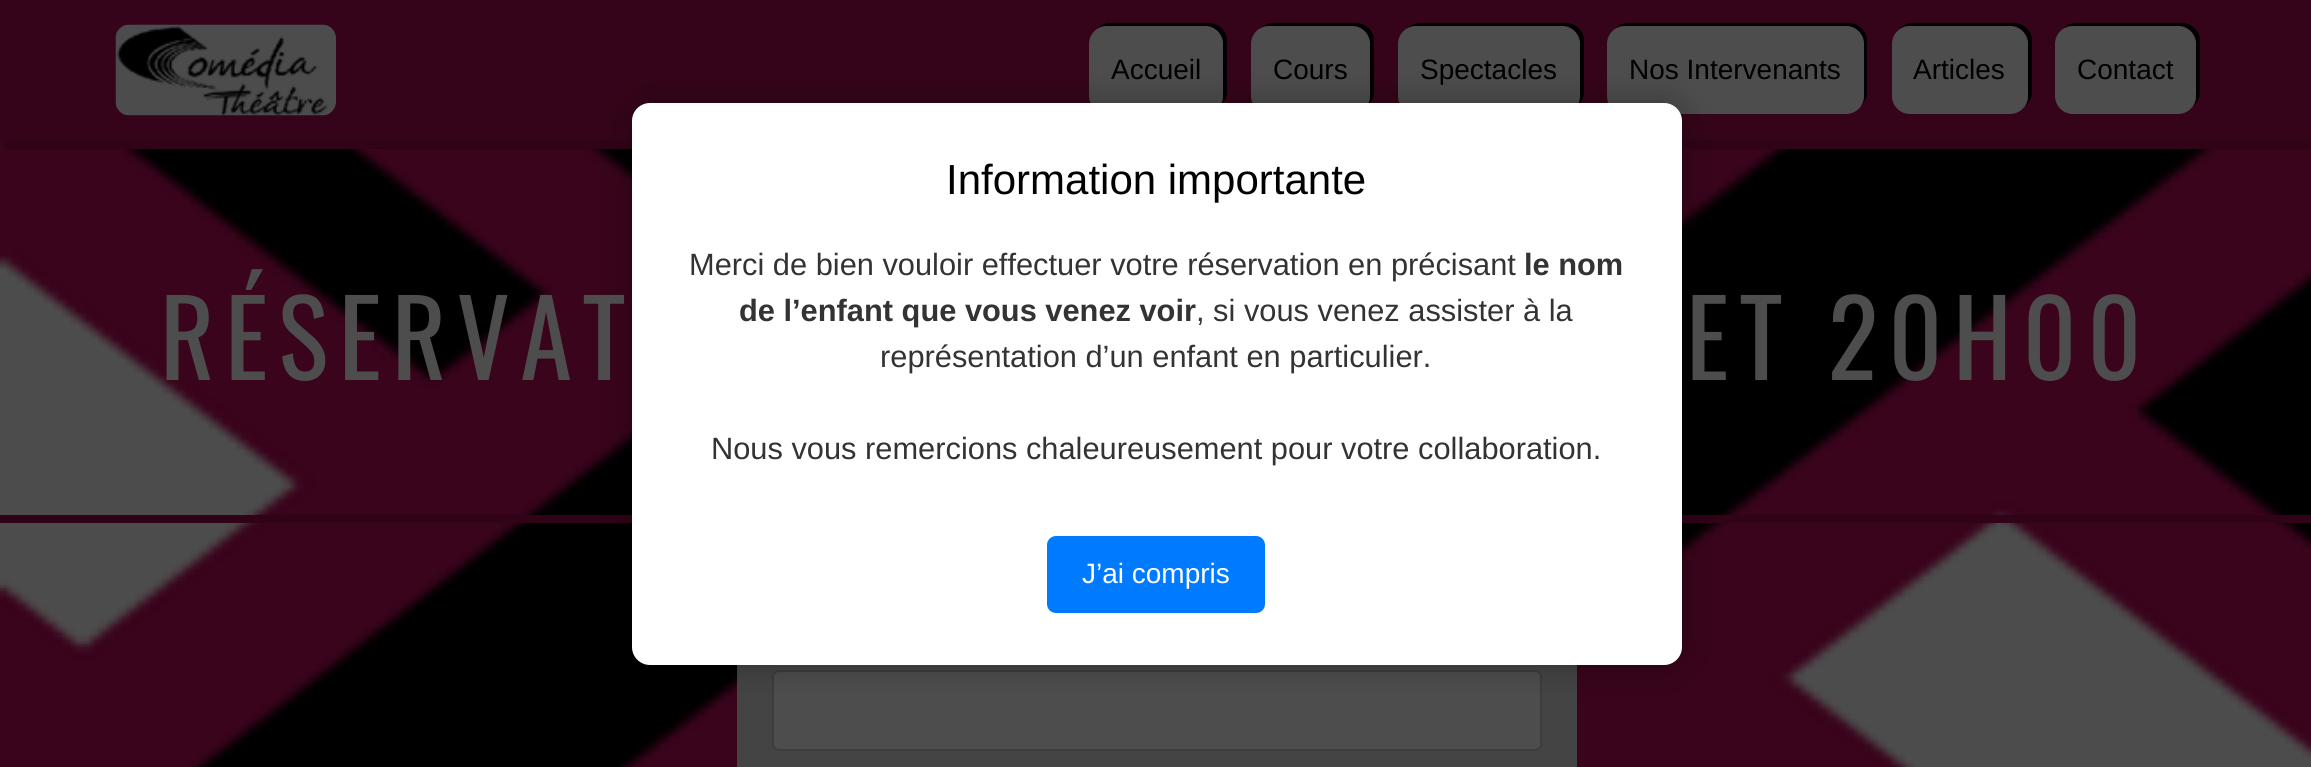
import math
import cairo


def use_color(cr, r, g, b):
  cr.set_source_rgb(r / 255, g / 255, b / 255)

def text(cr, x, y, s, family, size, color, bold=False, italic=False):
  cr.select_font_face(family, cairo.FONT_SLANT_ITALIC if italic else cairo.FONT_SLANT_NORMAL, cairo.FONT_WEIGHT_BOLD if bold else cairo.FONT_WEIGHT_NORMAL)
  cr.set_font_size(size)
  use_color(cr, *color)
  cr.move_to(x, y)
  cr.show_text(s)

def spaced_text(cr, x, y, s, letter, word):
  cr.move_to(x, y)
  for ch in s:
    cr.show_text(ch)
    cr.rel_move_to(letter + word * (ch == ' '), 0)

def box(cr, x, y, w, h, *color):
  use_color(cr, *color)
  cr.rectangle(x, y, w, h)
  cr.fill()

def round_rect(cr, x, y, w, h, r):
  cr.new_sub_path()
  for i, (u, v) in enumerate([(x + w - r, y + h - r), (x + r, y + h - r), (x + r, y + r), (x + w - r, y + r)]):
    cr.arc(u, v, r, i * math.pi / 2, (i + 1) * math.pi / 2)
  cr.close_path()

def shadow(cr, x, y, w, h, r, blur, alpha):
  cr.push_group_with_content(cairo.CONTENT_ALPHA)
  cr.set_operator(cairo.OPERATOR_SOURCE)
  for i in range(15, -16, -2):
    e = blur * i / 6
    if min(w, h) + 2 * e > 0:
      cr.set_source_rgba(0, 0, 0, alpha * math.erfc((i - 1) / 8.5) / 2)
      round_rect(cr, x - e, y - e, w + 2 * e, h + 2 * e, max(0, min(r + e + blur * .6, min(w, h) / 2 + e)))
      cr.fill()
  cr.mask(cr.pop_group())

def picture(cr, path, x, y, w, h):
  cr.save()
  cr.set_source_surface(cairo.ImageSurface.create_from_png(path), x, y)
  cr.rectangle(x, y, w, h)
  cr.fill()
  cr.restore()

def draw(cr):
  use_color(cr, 255, 255, 255)
  cr.paint()
  picture(cr, "img_01.png", 0, 140, 2311, 627)
  use_color(cr, 48, 3, 23)
  cr.new_path()
  cr.move_to(4, 140)
  cr.line_to(4, 149)
  cr.line_to(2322, 149)
  cr.line_to(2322, 2)
  cr.line_to(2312, 2)
  cr.line_to(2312, 140)
  cr.close_path()
  cr.fill()
  box(cr, 0, 0, 2311, 140, 53, 4, 26)
  picture(cr, "img_02.png", 115, 24, 221, 92)
  use_color(cr, 0, 0, 0)
  cr.new_path()
  cr.move_to(1110, 23)
  cr.curve_to(1105, 23, 1100, 25, 1097, 29)
  cr.curve_to(1099, 27, 1103, 26, 1106, 26)
  cr.line_to(1206, 26)
  cr.curve_to(1215, 26, 1223, 34, 1223, 44)
  cr.line_to(1223, 96)
  cr.curve_to(1223, 100, 1222, 103, 1220, 106)
  cr.curve_to(1224, 103, 1227, 98, 1227, 92)
  cr.line_to(1227, 41)
  cr.curve_to(1227, 31, 1219, 23, 1209, 23)
  cr.close_path()
  cr.fill()
  use_color(cr, 77, 77, 77)
  round_rect(cr, 1089, 26, 134, 88, 18)
  cr.fill()
  use_color(cr, 0, 0, 0)
  cr.new_path()
  cr.move_to(1273, 23)
  cr.curve_to(1268, 23, 1263, 25, 1260, 29)
  cr.curve_to(1263, 27, 1266, 26, 1269, 26)
  cr.line_to(1353, 26)
  cr.curve_to(1362, 26, 1370, 34, 1370, 44)
  cr.line_to(1370, 96)
  cr.curve_to(1370, 100, 1369, 103, 1367, 106)
  cr.curve_to(1371, 103, 1374, 98, 1374, 92)
  cr.line_to(1374, 41)
  cr.curve_to(1374, 31, 1366, 23, 1356, 23)
  cr.close_path()
  cr.fill()
  use_color(cr, 77, 77, 77)
  round_rect(cr, 1251, 26, 119, 88, 18)
  cr.fill()
  use_color(cr, 0, 0, 0)
  cr.new_path()
  cr.move_to(1420, 23)
  cr.curve_to(1415, 23, 1410, 25, 1407, 29)
  cr.curve_to(1410, 27, 1413, 26, 1416, 26)
  cr.line_to(1563, 26)
  cr.curve_to(1572, 26, 1580, 34, 1580, 44)
  cr.line_to(1580, 96)
  cr.curve_to(1580, 100, 1579, 103, 1577, 106)
  cr.curve_to(1581, 103, 1584, 98, 1584, 92)
  cr.line_to(1584, 41)
  cr.curve_to(1584, 31, 1576, 23, 1566, 23)
  cr.close_path()
  cr.fill()
  use_color(cr, 77, 77, 77)
  round_rect(cr, 1398, 26, 182, 88, 18)
  cr.fill()
  use_color(cr, 0, 0, 0)
  cr.new_path()
  cr.move_to(1628, 23)
  cr.curve_to(1623, 23, 1618, 25, 1615, 29)
  cr.curve_to(1617, 27, 1621, 26, 1624, 26)
  cr.line_to(1846, 26)
  cr.curve_to(1856, 26, 1864, 34, 1864, 44)
  cr.line_to(1864, 96)
  cr.curve_to(1864, 99, 1863, 102, 1861, 105)
  cr.curve_to(1865, 102, 1867, 97, 1867, 92)
  cr.line_to(1867, 41)
  cr.curve_to(1867, 31, 1859, 23, 1849, 23)
  cr.close_path()
  cr.fill()
  use_color(cr, 77, 77, 77)
  round_rect(cr, 1607, 26, 257, 88, 18)
  cr.fill()
  use_color(cr, 0, 0, 0)
  cr.new_path()
  cr.move_to(1913, 23)
  cr.curve_to(1907, 23, 1903, 25, 1899, 29)
  cr.curve_to(1902, 27, 1906, 26, 1909, 26)
  cr.line_to(2011, 26)
  cr.curve_to(2020, 26, 2028, 34, 2028, 44)
  cr.line_to(2028, 96)
  cr.curve_to(2028, 100, 2027, 103, 2025, 106)
  cr.curve_to(2029, 103, 2032, 98, 2032, 92)
  cr.line_to(2032, 41)
  cr.curve_to(2032, 31, 2024, 23, 2014, 23)
  cr.close_path()
  cr.fill()
  use_color(cr, 77, 77, 77)
  round_rect(cr, 1892, 26, 136, 88, 18)
  cr.fill()
  use_color(cr, 0, 0, 0)
  cr.new_path()
  cr.move_to(2076, 23)
  cr.curve_to(2071, 23, 2066, 25, 2063, 29)
  cr.curve_to(2065, 27, 2069, 26, 2072, 26)
  cr.line_to(2179, 26)
  cr.curve_to(2188, 26, 2196, 34, 2196, 44)
  cr.line_to(2196, 96)
  cr.curve_to(2196, 100, 2195, 103, 2193, 106)
  cr.curve_to(2197, 103, 2200, 98, 2200, 92)
  cr.line_to(2200, 41)
  cr.curve_to(2200, 31, 2192, 23, 2182, 23)
  cr.close_path()
  cr.fill()
  use_color(cr, 77, 77, 77)
  round_rect(cr, 2055, 26, 141, 88, 18)
  cr.fill()
  use_color(cr, 48, 3, 23)
  cr.new_path()
  cr.move_to(0, 515)
  cr.line_to(0, 523)
  cr.line_to(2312, 523)
  cr.line_to(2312, 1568)
  cr.line_to(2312, 515)
  cr.close_path()
  cr.fill()
  box(cr, 737, 665, 840, 102, 68, 68, 68)
  use_color(cr, 77, 77, 77)
  round_rect(cr, 773, 671, 768, 79, 6)
  cr.fill_preserve()
  use_color(cr, 61, 61, 61)
  cr.stroke()
  use_color(cr, 0, 0, 0)
  shadow(cr, 632, 103, 1050, 562, 18, 17.5, 0.3)
  use_color(cr, 255, 255, 255)
  round_rect(cr, 632, 103, 1050, 562, 18)
  cr.fill()
  use_color(cr, 0, 123, 255)
  round_rect(cr, 1047, 536, 218, 77, 9)
  cr.fill()
  text(cr, 1111, 79, "Accueil", "Liberation Sans", 28, (0, 0, 0))
  text(cr, 1273, 79, "Cours", "Liberation Sans", 28, (0, 0, 0))
  text(cr, 1420, 79, "Spectacles", "Liberation Sans", 28, (0, 0, 0))
  text(cr, 1629, 79, "Nos Intervenants", "Liberation Sans", 28, (0, 0, 0))
  text(cr, 1913, 79, "Articles", "Liberation Sans", 28, (0, 0, 0))
  text(cr, 2077, 79, "Contact", "Liberation Sans", 28, (0, 0, 0))
  text(cr, 946, 194, "Information importante", "Liberation Sans", 42, (0, 0, 0))
  text(cr, 689, 275, "Merci de bien vouloir effectuer votre réservation en précisant", "Liberation Sans", 30.8, (51, 51, 51))
  text(cr, 1524, 275, "le nom", "Liberation Sans", 30.8, (51, 51, 51), bold=True)
  text(cr, 739, 321, "de l’enfant que vous venez voir", "Liberation Sans", 30.8, (51, 51, 51), bold=True)
  text(cr, 1196, 321, ", si vous venez assister à la", "Liberation Sans", 30.8, (51, 51, 51))
  text(cr, 880, 367, "représentation d’un enfant en particulier.", "Liberation Sans", 30.8, (51, 51, 51))
  text(cr, 711, 459, "Nous vous remercions chaleureusement pour votre collaboration.", "Liberation Sans", 30.8, (51, 51, 51))
  text(cr, 1082, 583, "J’ai compris", "Liberation Sans", 28, (255, 255, 255))
  cr.select_font_face("Oswald")
  cr.set_font_size(105)
  use_color(cr, 77, 77, 77)
  spaced_text(cr, 160, 380, "RÉSERVAT", 10.5, 0)
  spaced_text(cr, 1686, 380, "ET 20H00", 10.5, 0)


surface = cairo.ImageSurface(cairo.FORMAT_RGB24, 2311, 767)
cr = cairo.Context(surface)
options = cairo.FontOptions()
options.set_hint_metrics(cairo.HINT_METRICS_OFF)
options.set_hint_style(cairo.HINT_STYLE_NONE)
cr.set_font_options(options)
cr.set_miter_limit(4)
draw(cr)
surface.write_to_png("out.png")
